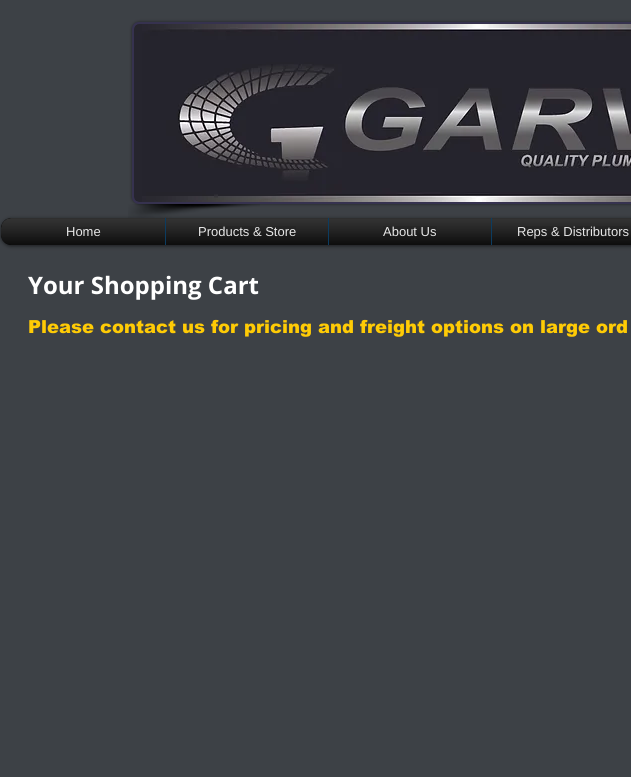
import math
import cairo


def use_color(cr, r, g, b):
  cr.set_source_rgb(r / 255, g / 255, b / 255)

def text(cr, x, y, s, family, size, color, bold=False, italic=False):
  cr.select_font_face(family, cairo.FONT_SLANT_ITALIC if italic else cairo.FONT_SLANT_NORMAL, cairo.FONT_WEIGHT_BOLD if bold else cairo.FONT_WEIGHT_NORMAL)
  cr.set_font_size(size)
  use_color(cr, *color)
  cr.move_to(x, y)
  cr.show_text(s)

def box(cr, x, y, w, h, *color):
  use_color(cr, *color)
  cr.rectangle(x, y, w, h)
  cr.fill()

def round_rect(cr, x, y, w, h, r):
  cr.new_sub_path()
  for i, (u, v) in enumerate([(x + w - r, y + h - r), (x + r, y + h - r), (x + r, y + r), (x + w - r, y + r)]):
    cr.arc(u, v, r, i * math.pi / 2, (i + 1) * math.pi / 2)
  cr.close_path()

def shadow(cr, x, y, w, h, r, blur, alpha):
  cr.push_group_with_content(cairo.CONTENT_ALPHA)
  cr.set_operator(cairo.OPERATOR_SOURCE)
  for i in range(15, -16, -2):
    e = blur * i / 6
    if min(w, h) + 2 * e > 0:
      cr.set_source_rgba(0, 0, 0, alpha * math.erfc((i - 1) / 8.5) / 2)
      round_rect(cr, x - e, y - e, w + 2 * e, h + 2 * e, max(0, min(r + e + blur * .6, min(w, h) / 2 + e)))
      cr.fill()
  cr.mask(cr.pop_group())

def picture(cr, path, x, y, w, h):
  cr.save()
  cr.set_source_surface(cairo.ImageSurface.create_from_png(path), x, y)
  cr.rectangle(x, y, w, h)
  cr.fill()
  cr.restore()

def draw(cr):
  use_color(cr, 61, 65, 70)
  cr.paint()
  use_color(cr, 0, 0, 0)
  shadow(cr, 132, 22, 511, 182, 7, 1.5, 0.5)
  use_color(cr, 54, 50, 79)
  round_rect(cr, 133, 23, 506, 180, 6)
  cr.fill_preserve()
  cr.stroke()
  picture(cr, "img_01.png", 134, 24, 497, 178)
  picture(cr, "img_02.png", 128, 204, 132, 14)
  use_color(cr, 0, 0, 0)
  shadow(cr, 1, 219, 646, 27, 10, 2, 0.6)
  picture(cr, "img_03.png", 1, 218, 10, 27)
  use_color(cr, 0, 0, 0)
  cr.new_path()
  cr.move_to(11, 218)
  cr.line_to(165, 218)
  cr.line_to(165, 245)
  cr.line_to(11, 245)
  cr.curve_to(5.5, 245, 1, 240.5, 1, 235)
  cr.line_to(1, 228)
  cr.curve_to(1, 222.5, 5.5, 218, 11, 218)
  cr.close_path()
  cr.fill()
  box(cr, 166, 218, 162, 27, 0, 0, 0)
  box(cr, 165, 218, 1, 27, 12, 60, 96)
  box(cr, 329, 218, 162, 27, 0, 0, 0)
  box(cr, 328, 218, 1, 27, 12, 60, 96)
  box(cr, 492, 218, 139, 27, 0, 0, 0)
  box(cr, 491, 218, 1, 27, 12, 60, 96)
  text(cr, 66, 236, "Home", "Liberation Sans", 13, (255, 255, 255))
  picture(cr, "img_04.png", 1, 218, 164, 27)
  picture(cr, "img_05.png", 66, 227, 34, 10)
  text(cr, 198, 236, "Products & Store", "Liberation Sans", 13, (255, 255, 255))
  picture(cr, "img_06.png", 166, 218, 162, 27)
  picture(cr, "img_07.png", 198, 226, 98, 11)
  text(cr, 383, 236, "About Us", "Liberation Sans", 13, (255, 255, 255))
  picture(cr, "img_08.png", 329, 218, 162, 27)
  picture(cr, "img_09.png", 383, 226, 54, 11)
  text(cr, 517, 236, "Reps & Distributors", "Liberation Sans", 13, (255, 255, 255))
  picture(cr, "img_10.png", 492, 218, 139, 27)
  picture(cr, "img_11.png", 518, 226, 111, 13)
  text(cr, 28, 294, "Your Shopping Cart", "Open Sans", 24, (255, 255, 255), bold=True)
  text(cr, 28, 333, "Please contact us for pricing and freight options on large ord", "arial Black", 18, (255, 203, 5))


surface = cairo.ImageSurface(cairo.FORMAT_RGB24, 631, 777)
cr = cairo.Context(surface)
options = cairo.FontOptions()
options.set_hint_metrics(cairo.HINT_METRICS_OFF)
options.set_hint_style(cairo.HINT_STYLE_NONE)
cr.set_font_options(options)
cr.set_miter_limit(4)
draw(cr)
surface.write_to_png("out.png")
